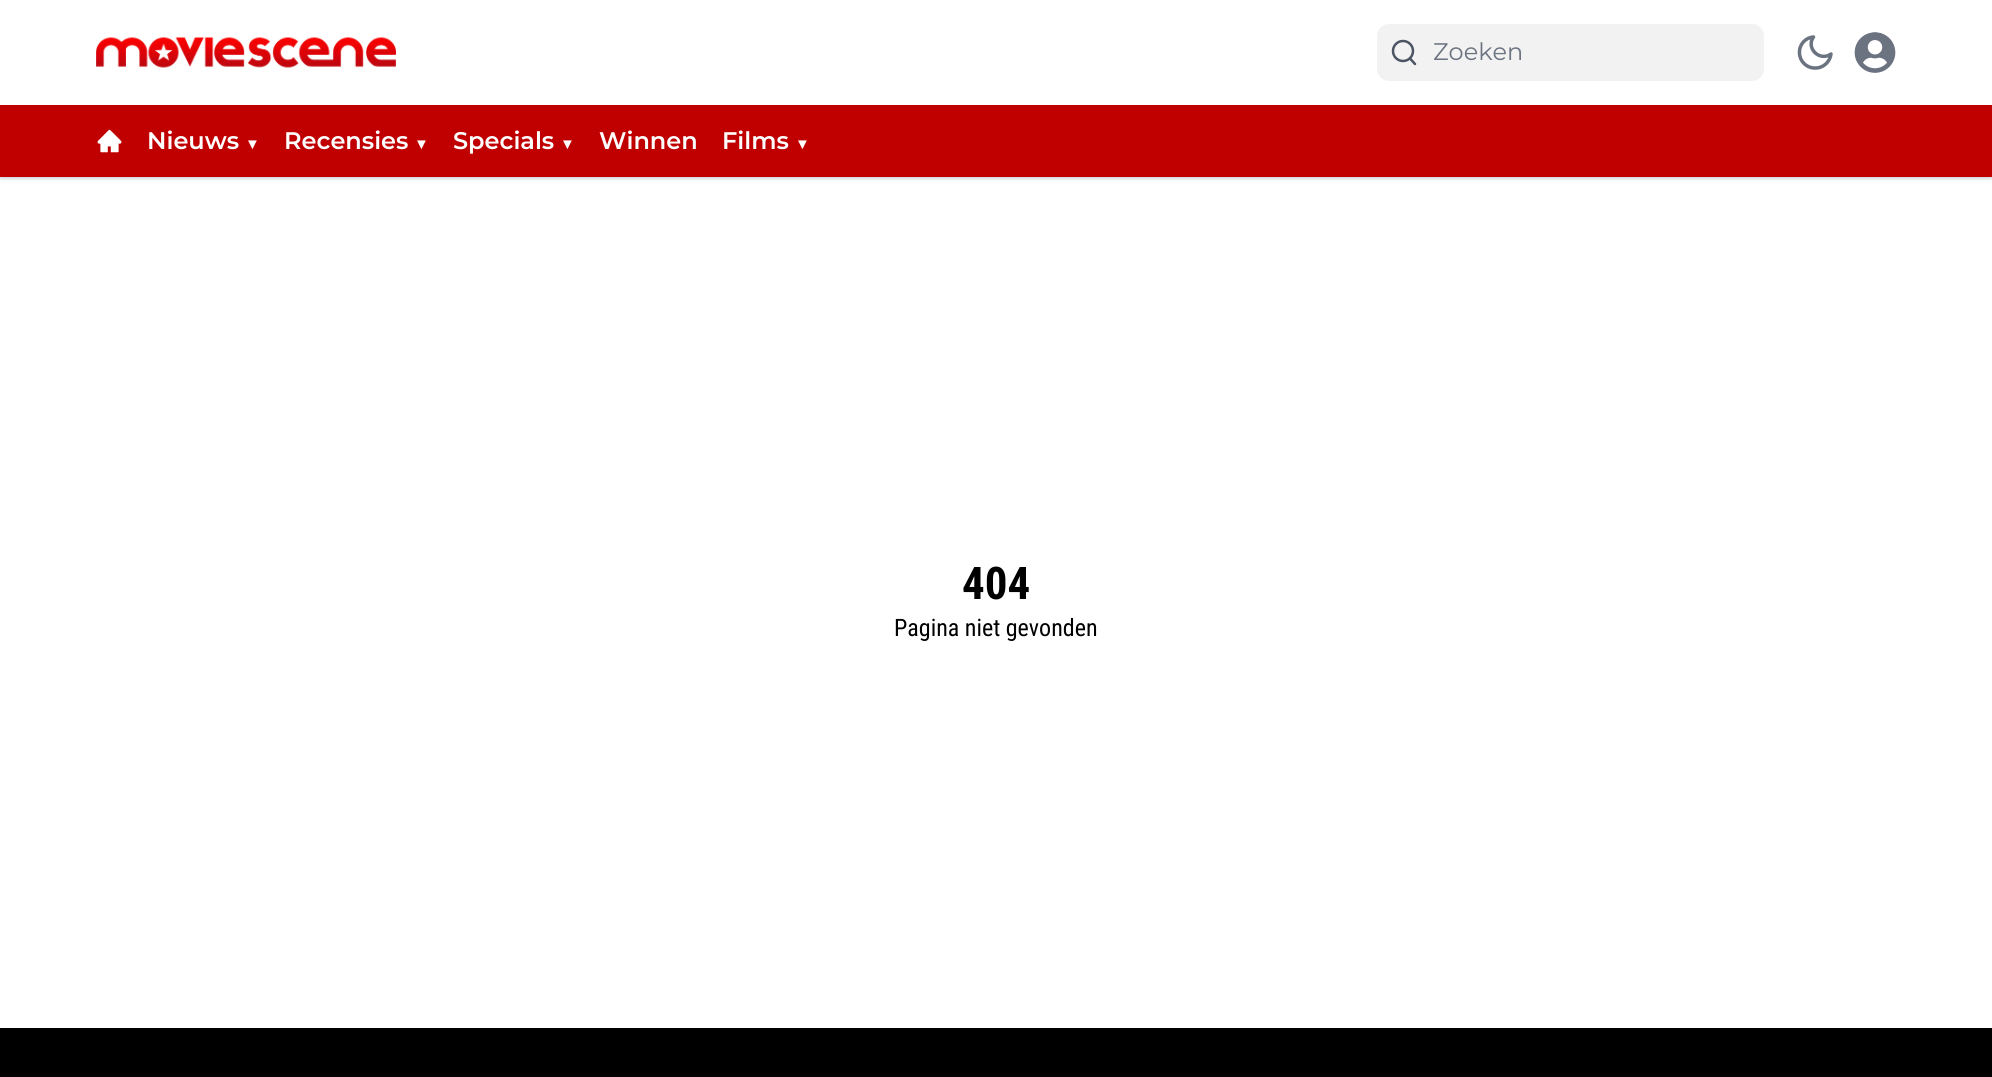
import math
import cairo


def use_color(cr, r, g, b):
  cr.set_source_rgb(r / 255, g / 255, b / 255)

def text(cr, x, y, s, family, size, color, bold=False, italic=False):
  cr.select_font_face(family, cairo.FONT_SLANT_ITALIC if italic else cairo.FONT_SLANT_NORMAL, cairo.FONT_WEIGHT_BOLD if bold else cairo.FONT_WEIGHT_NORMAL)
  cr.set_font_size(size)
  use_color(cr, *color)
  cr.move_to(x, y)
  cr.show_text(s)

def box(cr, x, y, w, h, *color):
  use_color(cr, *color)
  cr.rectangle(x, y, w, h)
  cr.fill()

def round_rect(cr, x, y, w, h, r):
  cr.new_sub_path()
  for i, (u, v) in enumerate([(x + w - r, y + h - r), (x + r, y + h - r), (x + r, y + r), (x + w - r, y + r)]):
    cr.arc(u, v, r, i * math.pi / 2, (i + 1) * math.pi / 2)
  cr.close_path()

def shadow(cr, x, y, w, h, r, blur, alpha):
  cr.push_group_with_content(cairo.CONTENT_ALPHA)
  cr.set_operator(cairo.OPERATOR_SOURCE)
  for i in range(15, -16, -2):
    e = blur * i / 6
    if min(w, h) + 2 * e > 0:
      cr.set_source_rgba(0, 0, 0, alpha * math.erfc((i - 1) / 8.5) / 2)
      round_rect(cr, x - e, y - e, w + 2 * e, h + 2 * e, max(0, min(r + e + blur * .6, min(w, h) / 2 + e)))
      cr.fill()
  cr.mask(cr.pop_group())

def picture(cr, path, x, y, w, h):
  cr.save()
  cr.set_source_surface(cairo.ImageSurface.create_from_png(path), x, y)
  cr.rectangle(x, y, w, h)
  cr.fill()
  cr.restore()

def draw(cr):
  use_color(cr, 255, 255, 255)
  cr.paint()
  cr.save()
  cr.rectangle(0, 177, 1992, 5)
  cr.clip()
  use_color(cr, 209, 213, 219)
  shadow(cr, 0, 2, 1992, 177, 0, 1.5, 1)
  cr.restore()
  picture(cr, "img_01.png", 96, 37, 300, 31)
  use_color(cr, 242, 242, 242)
  round_rect(cr, 1377, 24, 387, 57, 12)
  cr.fill()
  cr.arc(1403, 51, 10, 0, 2 * math.pi)
  use_color(cr, 75, 85, 99)
  cr.set_line_width(2.5)
  cr.stroke()
  cr.new_path()
  cr.move_to(1415, 64)
  cr.line_to(1410, 58.5)
  cr.set_line_cap(cairo.LINE_CAP_ROUND)
  cr.set_line_join(cairo.LINE_JOIN_ROUND)
  cr.stroke()
  cr.new_path()
  cr.move_to(1831, 54)
  cr.curve_to(1830, 62, 1823, 68.5, 1814.5, 68)
  cr.curve_to(1806.5, 68, 1799.5, 61, 1799.5, 53)
  cr.curve_to(1799, 44.5, 1805.5, 37.5, 1813.5, 37)
  cr.curve_to(1805.5, 48, 1819.5, 62, 1831, 54)
  cr.close_path()
  use_color(cr, 107, 114, 128)
  cr.set_line_width(3.5)
  cr.stroke()
  picture(cr, "img_02.png", 1854, 32, 42, 41)
  box(cr, 0, 105, 1992, 72, 192, 0, 0)
  picture(cr, "img_03.png", 97, 129, 25, 24)
  box(cr, 0, 1028, 1992, 49, 0, 0, 0)
  text(cr, 1433, 60, "Zoeken", "Montserrat", 24, (107, 114, 128))
  text(cr, 147, 149, "Nieuws", "Montserrat SemiBold", 24, (255, 255, 255))
  text(cr, 245, 149, "▼", "Liberation Serif", 15, (255, 255, 255), bold=True)
  text(cr, 284, 149, "Recensies", "Montserrat SemiBold", 24, (255, 255, 255))
  text(cr, 414, 149, "▼", "Liberation Serif", 15, (255, 255, 255), bold=True)
  text(cr, 453, 149, "Specials", "Montserrat SemiBold", 24, (255, 255, 255))
  text(cr, 560, 149, "▼", "Liberation Serif", 15, (255, 255, 255), bold=True)
  text(cr, 599, 149, "Winnen", "Montserrat SemiBold", 24, (255, 255, 255))
  text(cr, 722, 149, "Films", "Montserrat SemiBold", 24, (255, 255, 255))
  text(cr, 795, 149, "▼", "Liberation Serif", 15, (255, 255, 255), bold=True)
  text(cr, 962, 599, "404", "Roboto Condensed", 45, (0, 0, 0), bold=True)
  text(cr, 894, 636, "Pagina niet gevonden", "Roboto Condensed", 24, (0, 0, 0))


surface = cairo.ImageSurface(cairo.FORMAT_RGB24, 1992, 1077)
cr = cairo.Context(surface)
options = cairo.FontOptions()
options.set_hint_metrics(cairo.HINT_METRICS_OFF)
options.set_hint_style(cairo.HINT_STYLE_NONE)
cr.set_font_options(options)
cr.set_miter_limit(4)
draw(cr)
surface.write_to_png("out.png")
